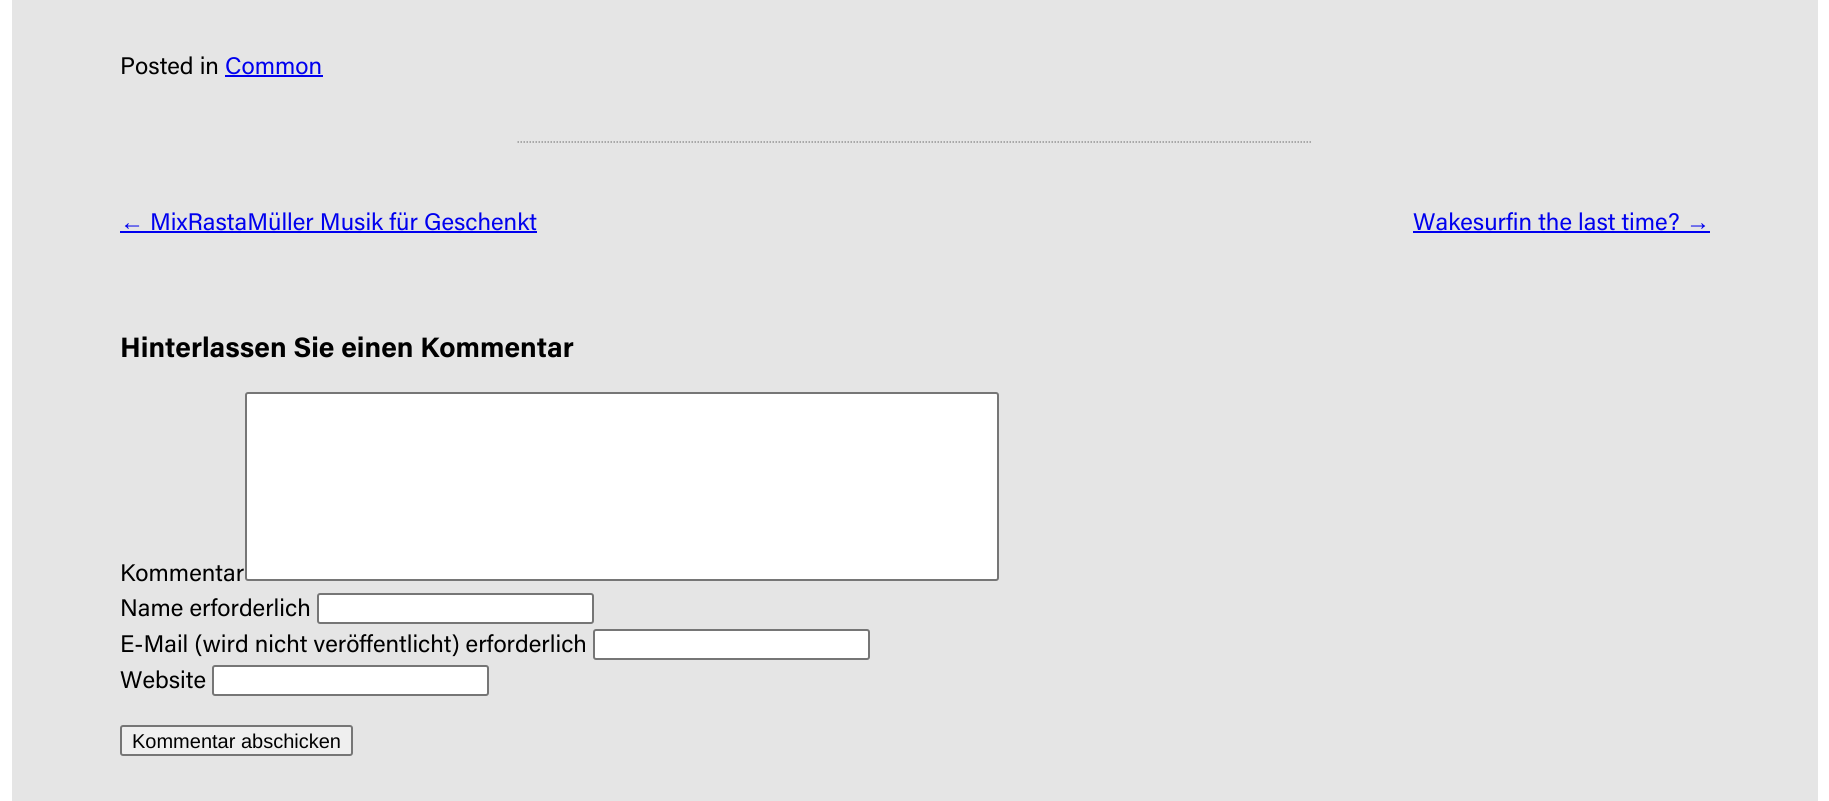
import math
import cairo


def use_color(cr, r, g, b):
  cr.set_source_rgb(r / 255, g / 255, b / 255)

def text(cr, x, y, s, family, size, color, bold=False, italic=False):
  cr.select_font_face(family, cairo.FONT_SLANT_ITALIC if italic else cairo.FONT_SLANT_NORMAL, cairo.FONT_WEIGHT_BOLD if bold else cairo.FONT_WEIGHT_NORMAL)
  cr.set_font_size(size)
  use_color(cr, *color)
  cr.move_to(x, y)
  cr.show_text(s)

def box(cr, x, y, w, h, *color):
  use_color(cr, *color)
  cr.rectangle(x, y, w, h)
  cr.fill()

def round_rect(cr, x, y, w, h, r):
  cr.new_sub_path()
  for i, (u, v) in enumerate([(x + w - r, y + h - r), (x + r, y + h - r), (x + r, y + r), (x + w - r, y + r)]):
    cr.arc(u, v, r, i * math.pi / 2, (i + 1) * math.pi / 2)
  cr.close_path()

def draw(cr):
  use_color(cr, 255, 255, 255)
  cr.paint()
  box(cr, 12, 0, 1806, 801, 229, 229, 229)
  box(cr, 225, 75, 98, 2, 0, 0, 238)
  cr.new_path()
  cr.move_to(517.5, 142)
  cr.line_to(1312.5, 142)
  use_color(cr, 147, 147, 147)
  cr.set_line_width(1.5)
  cr.set_dash([1.5, 1.5])
  cr.stroke()
  box(cr, 120, 231, 417, 2, 0, 0, 238)
  box(cr, 1413, 231, 297, 2, 0, 0, 238)
  use_color(cr, 255, 255, 255)
  round_rect(cr, 246, 393, 752, 187, 2)
  cr.fill_preserve()
  use_color(cr, 118, 118, 118)
  cr.set_line_width(2)
  cr.set_dash([])
  cr.stroke()
  use_color(cr, 255, 255, 255)
  round_rect(cr, 318, 594, 275, 29, 2)
  cr.fill_preserve()
  use_color(cr, 118, 118, 118)
  cr.stroke()
  use_color(cr, 255, 255, 255)
  round_rect(cr, 594, 630, 275, 29, 2)
  cr.fill_preserve()
  use_color(cr, 118, 118, 118)
  cr.stroke()
  use_color(cr, 255, 255, 255)
  round_rect(cr, 213, 666, 275, 29, 2)
  cr.fill_preserve()
  use_color(cr, 118, 118, 118)
  cr.stroke()
  use_color(cr, 239, 239, 239)
  round_rect(cr, 121, 726, 231, 29, 2)
  cr.fill_preserve()
  use_color(cr, 118, 118, 118)
  cr.stroke()
  text(cr, 120, 74, "Posted in", "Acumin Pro", 24, (0, 0, 0))
  text(cr, 225, 74, "Common", "Acumin Pro", 24, (0, 0, 238))
  text(cr, 120, 230, "←", "Liberation Sans", 24, (0, 0, 238))
  text(cr, 150, 230, "MixRastaMüller Musik für Geschenkt", "Acumin Pro", 24, (0, 0, 238))
  text(cr, 1413, 230, "Wakesurfin the last time?", "Acumin Pro", 24, (0, 0, 238))
  text(cr, 1686, 230, "→", "Liberation Sans", 24, (0, 0, 238))
  text(cr, 120, 357, "Hinterlassen Sie einen Kommentar", "Acumin Pro", 28.1, (0, 0, 0), bold=True)
  text(cr, 120, 581, "Kommentar", "Acumin Pro", 24, (0, 0, 0))
  text(cr, 120, 616, "Name erforderlich", "Acumin Pro", 24, (0, 0, 0))
  text(cr, 120, 652, "E-Mail (wird nicht veröffentlicht) erforderlich", "Acumin Pro", 24, (0, 0, 0))
  text(cr, 120, 688, "Website", "Acumin Pro", 24, (0, 0, 0))
  text(cr, 132, 748, "Kommentar abschicken", "Liberation Sans", 20, (0, 0, 0))


surface = cairo.ImageSurface(cairo.FORMAT_RGB24, 1829, 801)
cr = cairo.Context(surface)
options = cairo.FontOptions()
options.set_hint_metrics(cairo.HINT_METRICS_OFF)
options.set_hint_style(cairo.HINT_STYLE_NONE)
cr.set_font_options(options)
cr.set_miter_limit(4)
draw(cr)
surface.write_to_png("out.png")
